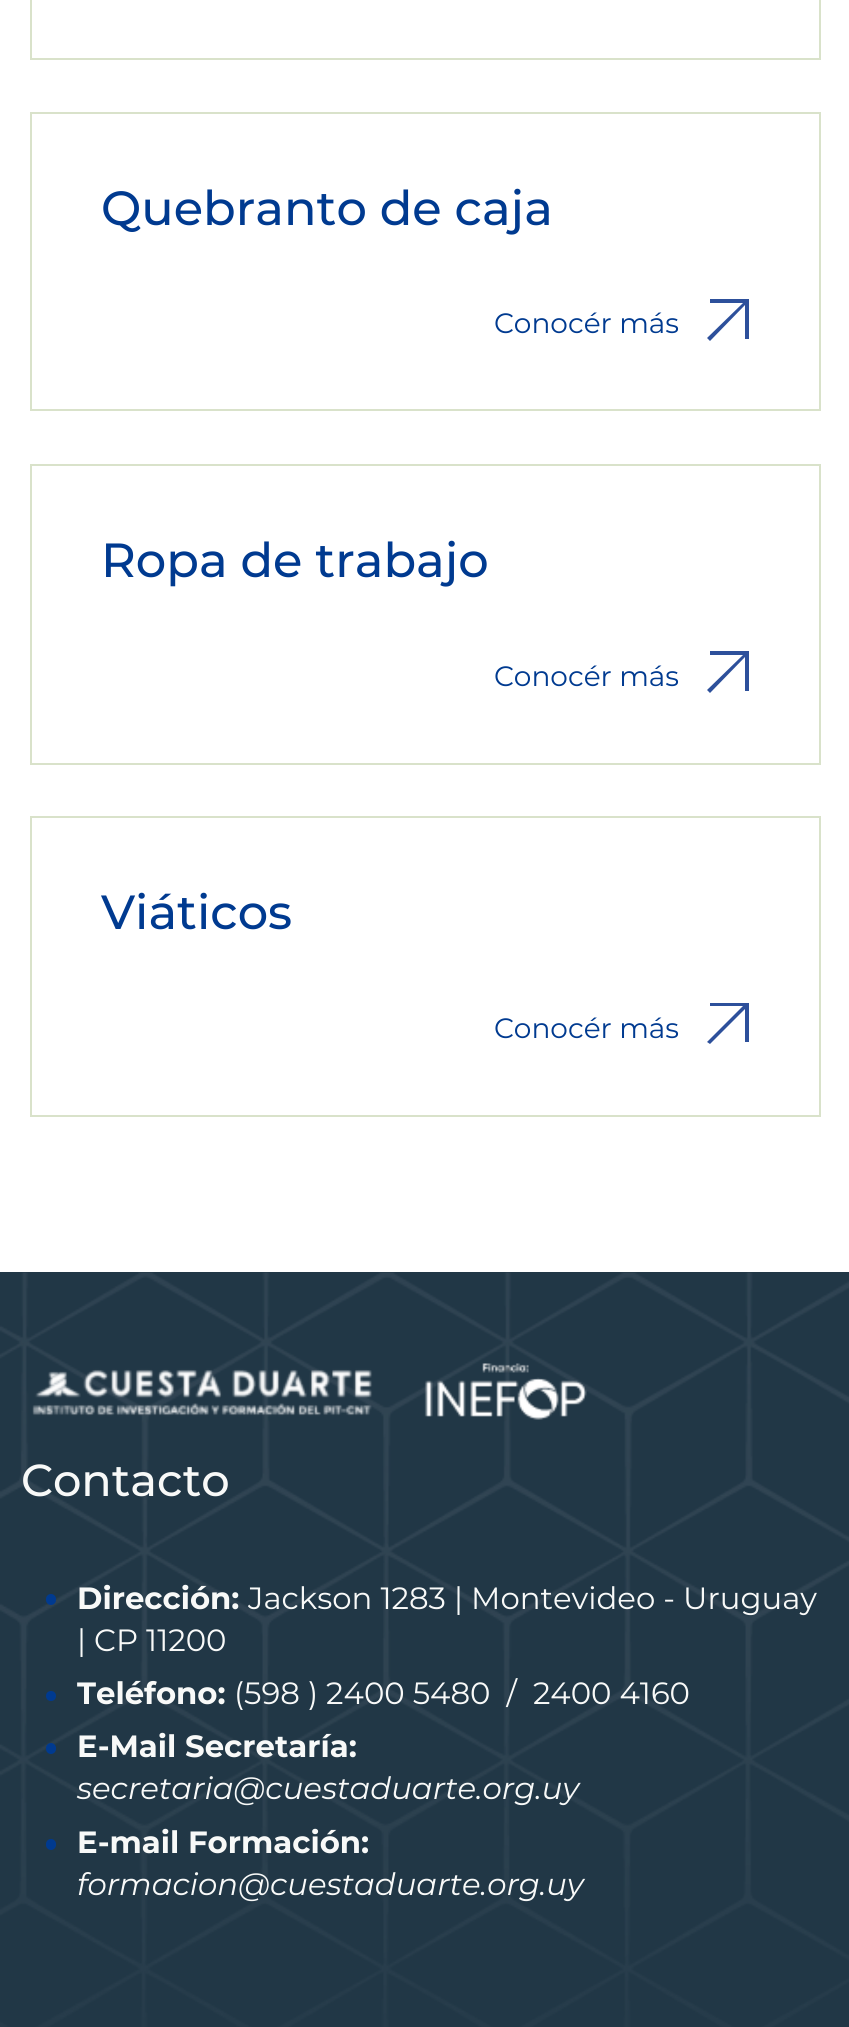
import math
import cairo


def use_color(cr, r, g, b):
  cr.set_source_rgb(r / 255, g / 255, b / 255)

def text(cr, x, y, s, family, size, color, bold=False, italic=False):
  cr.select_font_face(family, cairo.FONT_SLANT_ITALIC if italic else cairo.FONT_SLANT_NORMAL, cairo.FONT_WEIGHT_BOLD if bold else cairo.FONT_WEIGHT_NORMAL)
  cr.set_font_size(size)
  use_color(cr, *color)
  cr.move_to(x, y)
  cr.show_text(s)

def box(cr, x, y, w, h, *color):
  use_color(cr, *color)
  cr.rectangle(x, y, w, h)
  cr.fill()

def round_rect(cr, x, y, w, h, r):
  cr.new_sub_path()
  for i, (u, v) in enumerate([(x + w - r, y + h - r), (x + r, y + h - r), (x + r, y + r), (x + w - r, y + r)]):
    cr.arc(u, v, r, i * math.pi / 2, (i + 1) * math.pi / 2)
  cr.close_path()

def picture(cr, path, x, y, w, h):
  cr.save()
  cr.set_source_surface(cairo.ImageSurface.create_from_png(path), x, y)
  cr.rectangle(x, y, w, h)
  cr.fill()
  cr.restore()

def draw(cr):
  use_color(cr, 255, 255, 255)
  cr.paint()
  cr.rectangle(31, -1, 789, 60)
  use_color(cr, 217, 226, 202)
  cr.stroke()
  cr.rectangle(31, 113, 789, 297)
  cr.stroke()
  use_color(cr, 45, 80, 155)
  cr.new_path()
  cr.move_to(710, 299)
  cr.line_to(710, 303)
  cr.line_to(743, 303)
  cr.line_to(707, 338)
  cr.line_to(710, 341)
  cr.line_to(745, 305)
  cr.line_to(745, 339)
  cr.line_to(749, 339)
  cr.line_to(749, 299)
  cr.close_path()
  cr.fill()
  cr.rectangle(31, 465, 789, 299)
  use_color(cr, 217, 226, 202)
  cr.stroke()
  use_color(cr, 45, 80, 155)
  cr.new_path()
  cr.move_to(710, 651)
  cr.line_to(710, 655)
  cr.line_to(743, 655)
  cr.line_to(707, 690)
  cr.line_to(710, 693)
  cr.line_to(745, 657)
  cr.line_to(745, 691)
  cr.line_to(749, 691)
  cr.line_to(749, 651)
  cr.close_path()
  cr.fill()
  cr.rectangle(31, 817, 789, 299)
  use_color(cr, 217, 226, 202)
  cr.stroke()
  use_color(cr, 45, 80, 155)
  cr.new_path()
  cr.move_to(710, 1003)
  cr.line_to(710, 1006)
  cr.line_to(743, 1006)
  cr.line_to(707, 1042)
  cr.line_to(710, 1044)
  cr.line_to(745, 1009)
  cr.line_to(745, 1042)
  cr.line_to(749, 1042)
  cr.line_to(749, 1003)
  cr.close_path()
  cr.fill()
  box(cr, 0, 1272, 849, 755, 33, 55, 70)
  picture(cr, "img_01.png", 0, 1272, 849, 755)
  picture(cr, "img_02.png", 32, 1363, 555, 57)
  use_color(cr, 0, 58, 144)
  round_rect(cr, 46, 1594, 10, 11, 5)
  cr.fill()
  cr.arc(51, 1696, 5, 0, 2 * math.pi)
  cr.fill()
  round_rect(cr, 46, 1743, 10, 11, 5)
  cr.fill()
  round_rect(cr, 46, 1839, 10, 11, 5)
  cr.fill()
  text(cr, 101, 225, "Quebranto de caja", "Montserrat Medium", 47.9, (0, 58, 144))
  text(cr, 494, 333, "Conocér más", "Montserrat", 28, (0, 58, 144))
  text(cr, 101, 577, "Ropa de trabajo", "Montserrat Medium", 47.9, (0, 58, 144))
  text(cr, 494, 686, "Conocér más", "Montserrat", 28, (0, 58, 144))
  text(cr, 101, 929, "Viáticos", "Montserrat Medium", 47.9, (0, 58, 144))
  text(cr, 494, 1038, "Conocér más", "Montserrat", 28, (0, 58, 144))
  text(cr, 21, 1496, "Contacto", "Montserrat Medium", 44.75, (248, 249, 248))
  text(cr, 77, 1609, "Dirección:", "Montserrat", 30.75, (248, 249, 248), bold=True)
  text(cr, 248, 1609, "Jackson 1283 | Montevideo - Uruguay", "Montserrat", 30.75, (248, 249, 248))
  text(cr, 77, 1651, "| CP 11200", "Montserrat", 30.75, (248, 249, 248))
  text(cr, 77, 1704, "Teléfono:", "Montserrat", 30.75, (248, 249, 248), bold=True)
  text(cr, 234, 1704, "(598 ) 2400 5480  /  2400 4160", "Montserrat", 30.75, (248, 249, 248))
  text(cr, 77, 1757, "E-Mail Secretaría:", "Montserrat", 30.75, (248, 249, 248), bold=True)
  text(cr, 77, 1799, "secretaria@cuestaduarte.org.uy", "Montserrat", 30.75, (248, 249, 248), italic=True)
  text(cr, 77, 1853, "E-mail Formación:", "Montserrat", 30.75, (248, 249, 248), bold=True)
  text(cr, 77, 1895, "formacion@cuestaduarte.org.uy", "Montserrat", 30.75, (248, 249, 248), italic=True)


surface = cairo.ImageSurface(cairo.FORMAT_RGB24, 849, 2027)
cr = cairo.Context(surface)
options = cairo.FontOptions()
options.set_hint_metrics(cairo.HINT_METRICS_OFF)
options.set_hint_style(cairo.HINT_STYLE_NONE)
cr.set_font_options(options)
cr.set_miter_limit(4)
draw(cr)
surface.write_to_png("out.png")
